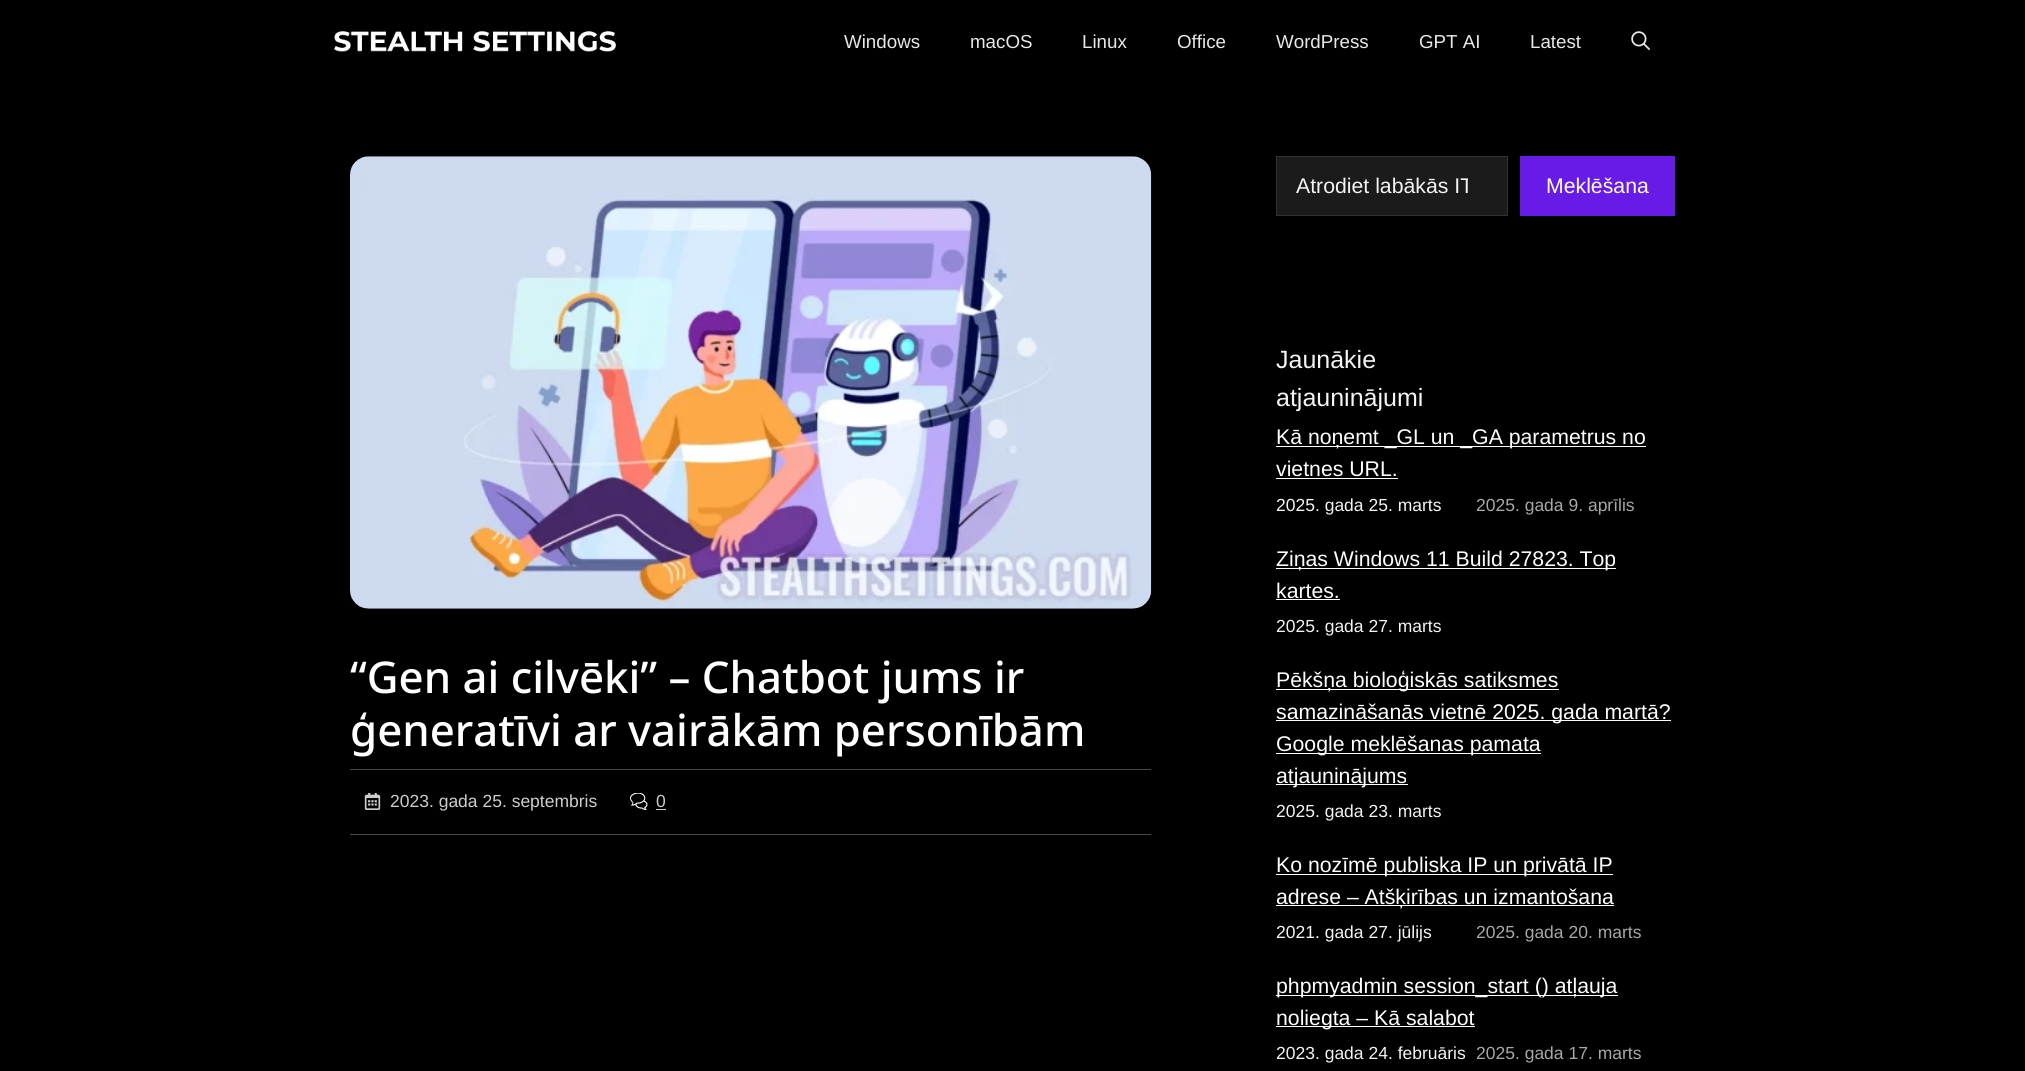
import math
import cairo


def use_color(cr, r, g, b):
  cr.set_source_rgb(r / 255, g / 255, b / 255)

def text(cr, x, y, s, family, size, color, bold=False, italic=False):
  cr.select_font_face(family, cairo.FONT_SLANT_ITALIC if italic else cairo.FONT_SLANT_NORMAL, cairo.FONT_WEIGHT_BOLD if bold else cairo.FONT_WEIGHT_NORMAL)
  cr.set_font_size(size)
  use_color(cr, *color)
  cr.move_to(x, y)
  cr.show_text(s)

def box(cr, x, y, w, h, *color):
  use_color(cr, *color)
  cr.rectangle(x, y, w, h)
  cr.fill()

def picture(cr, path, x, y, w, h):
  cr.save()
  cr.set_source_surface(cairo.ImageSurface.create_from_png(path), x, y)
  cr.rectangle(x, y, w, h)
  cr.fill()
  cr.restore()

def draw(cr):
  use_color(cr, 0, 0, 0)
  cr.paint()
  picture(cr, "img_01.png", 334, 31, 282, 21)
  picture(cr, "img_02.png", 1631, 31, 19, 19)
  picture(cr, "img_03.png", 350, 156, 802, 453)
  box(cr, 350, 769, 801, 1, 71, 71, 71)
  box(cr, 350, 834, 801, 1, 71, 71, 71)
  picture(cr, "img_04.png", 364, 793, 17, 17)
  picture(cr, "img_05.png", 630, 793, 18, 17)
  box(cr, 656, 809, 10, 1, 205, 205, 205)
  use_color(cr, 27, 27, 27)
  cr.rectangle(1276.5, 156.5, 231, 59)
  cr.fill_preserve()
  use_color(cr, 51, 50, 50)
  cr.set_line_width(1)
  cr.stroke()
  box(cr, 1520, 156, 155, 60, 104, 26, 230)
  box(cr, 1276, 446, 370, 1, 255, 255, 255)
  box(cr, 1276, 478, 122, 1, 255, 255, 255)
  box(cr, 1276, 568, 340, 1, 255, 255, 255)
  box(cr, 1276, 599, 64, 1, 255, 255, 255)
  box(cr, 1276, 689, 283, 1, 255, 255, 255)
  box(cr, 1276, 720, 395, 1, 255, 255, 255)
  box(cr, 1276, 753, 265, 1, 255, 255, 255)
  box(cr, 1276, 784, 132, 1, 255, 255, 255)
  box(cr, 1276, 874, 337, 1, 255, 255, 255)
  box(cr, 1276, 905, 338, 1, 255, 255, 255)
  box(cr, 1276, 995, 342, 1, 255, 255, 255)
  box(cr, 1276, 1026, 199, 1, 255, 255, 255)
  text(cr, 844, 48, "Windows", "Liberation Sans", 18.75, (232, 232, 232))
  text(cr, 970, 48, "macOS", "Liberation Sans", 18.75, (232, 232, 232))
  text(cr, 1082, 48, "Linux", "Liberation Sans", 18.75, (232, 232, 232))
  text(cr, 1177, 48, "Office", "Liberation Sans", 18.75, (232, 232, 232))
  text(cr, 1276, 48, "WordPress", "Liberation Sans", 18.75, (232, 232, 232))
  text(cr, 1419, 48, "GPT AI", "Liberation Sans", 18.75, (232, 232, 232))
  text(cr, 1530, 48, "Latest", "Liberation Sans", 18.75, (232, 232, 232))
  text(cr, 350, 693, "“Gen ai cilvēki” – Chatbot jums ir", "Noto Sans Medium", 43.75, (255, 255, 255))
  text(cr, 350, 746, "ģeneratīvi ar vairākām personībām", "Noto Sans Medium", 43.75, (255, 255, 255))
  text(cr, 390, 807, "2023. gada 25. septembris", "Liberation Sans", 17.5, (205, 205, 205))
  text(cr, 656, 807, "0", "Liberation Sans", 17.5, (205, 205, 205))
  cr.save()
  cr.rectangle(1296, 170, 172, 33)
  cr.clip()
  text(cr, 1296, 193, "Atrodiet labākās IT", "Liberation Sans", 21.25, (244, 244, 244))
  cr.restore()
  text(cr, 1546, 193, "Meklēšana", "Liberation Sans", 21.25, (255, 255, 255))
  text(cr, 1276, 368, "Jaunākie", "Liberation Sans", 25, (244, 244, 244))
  text(cr, 1276, 406, "atjauninājumi", "Liberation Sans", 25, (244, 244, 244))
  text(cr, 1276, 444, "Kā noņemt _GL un _GA parametrus no", "Liberation Sans", 21.25, (255, 255, 255))
  text(cr, 1276, 476, "vietnes URL.", "Liberation Sans", 21.25, (255, 255, 255))
  text(cr, 1276, 511, "2025. gada 25. marts", "Liberation Sans", 17.5, (244, 244, 244))
  text(cr, 1476, 511, "2025. gada 9. aprīlis", "Liberation Sans", 17.5, (168, 168, 168))
  text(cr, 1276, 566, "Ziņas Windows 11 Build 27823. Top", "Liberation Sans", 21.25, (255, 255, 255))
  text(cr, 1276, 598, "kartes.", "Liberation Sans", 21.25, (255, 255, 255))
  text(cr, 1276, 632, "2025. gada 27. marts", "Liberation Sans", 17.5, (244, 244, 244))
  text(cr, 1276, 687, "Pēkšņa bioloģiskās satiksmes", "Liberation Sans", 21.25, (255, 255, 255))
  text(cr, 1276, 719, "samazināšanās vietnē 2025. gada martā?", "Liberation Sans", 21.25, (255, 255, 255))
  text(cr, 1276, 751, "Google meklēšanas pamata", "Liberation Sans", 21.25, (255, 255, 255))
  text(cr, 1276, 783, "atjauninājums", "Liberation Sans", 21.25, (255, 255, 255))
  text(cr, 1276, 817, "2025. gada 23. marts", "Liberation Sans", 17.5, (244, 244, 244))
  text(cr, 1276, 872, "Ko nozīmē publiska IP un privātā IP", "Liberation Sans", 21.25, (255, 255, 255))
  text(cr, 1276, 904, "adrese – Atšķirības un izmantošana", "Liberation Sans", 21.25, (255, 255, 255))
  text(cr, 1276, 938, "2021. gada 27. jūlijs", "Liberation Sans", 17.5, (244, 244, 244))
  text(cr, 1476, 938, "2025. gada 20. marts", "Liberation Sans", 17.5, (168, 168, 168))
  text(cr, 1276, 993, "phpmyadmin session_start () atļauja", "Liberation Sans", 21.25, (255, 255, 255))
  text(cr, 1276, 1025, "noliegta – Kā salabot", "Liberation Sans", 21.25, (255, 255, 255))
  text(cr, 1276, 1059, "2023. gada 24. februāris", "Liberation Sans", 17.5, (244, 244, 244))
  text(cr, 1476, 1059, "2025. gada 17. marts", "Liberation Sans", 17.5, (168, 168, 168))


surface = cairo.ImageSurface(cairo.FORMAT_RGB24, 2025, 1071)
cr = cairo.Context(surface)
options = cairo.FontOptions()
options.set_hint_metrics(cairo.HINT_METRICS_OFF)
options.set_hint_style(cairo.HINT_STYLE_NONE)
cr.set_font_options(options)
cr.set_miter_limit(4)
draw(cr)
surface.write_to_png("out.png")
